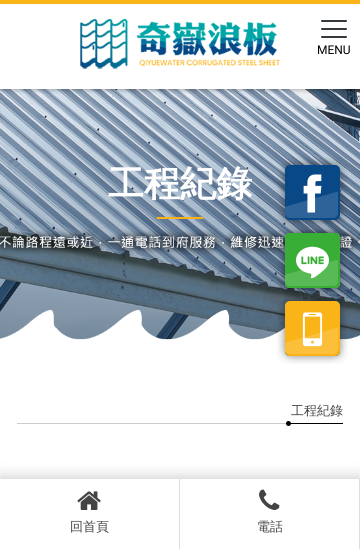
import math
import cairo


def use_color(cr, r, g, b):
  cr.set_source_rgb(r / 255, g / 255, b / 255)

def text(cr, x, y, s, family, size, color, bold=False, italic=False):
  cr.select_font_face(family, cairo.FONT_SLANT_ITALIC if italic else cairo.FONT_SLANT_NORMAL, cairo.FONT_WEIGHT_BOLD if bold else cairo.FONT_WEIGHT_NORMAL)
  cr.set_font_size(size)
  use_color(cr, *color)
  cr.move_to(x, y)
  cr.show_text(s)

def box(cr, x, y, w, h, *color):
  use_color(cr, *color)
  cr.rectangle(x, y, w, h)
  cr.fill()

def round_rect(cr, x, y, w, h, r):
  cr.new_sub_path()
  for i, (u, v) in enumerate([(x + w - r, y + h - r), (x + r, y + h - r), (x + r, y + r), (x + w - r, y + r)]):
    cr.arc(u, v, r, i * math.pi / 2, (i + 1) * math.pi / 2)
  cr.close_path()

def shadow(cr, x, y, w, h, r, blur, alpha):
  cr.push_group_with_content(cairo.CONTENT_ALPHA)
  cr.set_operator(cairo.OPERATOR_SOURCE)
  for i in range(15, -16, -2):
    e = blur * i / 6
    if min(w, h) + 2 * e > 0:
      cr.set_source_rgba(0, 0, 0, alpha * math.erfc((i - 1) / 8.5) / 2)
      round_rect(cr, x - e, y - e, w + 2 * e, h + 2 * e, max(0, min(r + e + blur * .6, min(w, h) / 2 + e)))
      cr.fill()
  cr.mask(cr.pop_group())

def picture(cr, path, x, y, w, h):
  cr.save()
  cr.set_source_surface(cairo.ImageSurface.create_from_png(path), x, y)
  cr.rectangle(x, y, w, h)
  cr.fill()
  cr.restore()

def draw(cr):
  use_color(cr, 255, 255, 255)
  cr.paint()
  picture(cr, "img_05.png", 0, 89, 360, 251)
  cr.save()
  cr.rectangle(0, 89, 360, 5)
  cr.clip()
  use_color(cr, 0, 0, 0)
  shadow(cr, 1, 1, 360, 89, 0, 2.5, 0.3)
  cr.restore()
  box(cr, 0, 0, 360, 4, 250, 180, 24)
  picture(cr, "img_01.png", 80, 19, 200, 50)
  use_color(cr, 52, 58, 64)
  round_rect(cr, 321, 36, 26, 2, 1)
  cr.fill()
  round_rect(cr, 321, 28, 26, 2, 1)
  cr.fill()
  round_rect(cr, 321, 20, 26, 2, 1)
  cr.fill()
  picture(cr, "img_02.png", 277, 157, 71, 71)
  picture(cr, "img_03.png", 277, 225, 71, 71)
  picture(cr, "img_04.png", 277, 294, 71, 70)
  box(cr, 17, 423, 269, 1, 204, 204, 204)
  box(cr, 286, 423, 57, 1, 0, 0, 0)
  cr.arc(288.5, 423.5, 2.5, 0, 2 * math.pi)
  cr.fill()
  use_color(cr, 0, 0, 0)
  shadow(cr, 0, 477, 360, 70, 0, 7.5, 0.2)
  box(cr, 0, 479, 359, 70, 255, 255, 255)
  box(cr, 179, 479, 1, 70, 221, 221, 221)
  picture(cr, "img_06.png", 77, 491, 24, 19)
  box(cr, 359, 479, 1, 70, 221, 221, 221)
  picture(cr, "img_07.png", 259, 489, 21, 21)
  text(cr, 317, 54, "MENU", "Roboto", 12, (0, 0, 0))
  text(cr, 108, 196, "工程紀錄", "WenQuanYi Zen Hei", 36, (255, 255, 255), bold=True)
  text(cr, 291, 415, "工程紀錄", "WenQuanYi Zen Hei Medium", 13, (68, 68, 68))
  text(cr, 70, 531, "回首頁", "WenQuanYi Zen Hei Medium", 13, (68, 68, 68))
  text(cr, 257, 531, "電話", "WenQuanYi Zen Hei Medium", 13, (68, 68, 68))


surface = cairo.ImageSurface(cairo.FORMAT_RGB24, 360, 549)
cr = cairo.Context(surface)
options = cairo.FontOptions()
options.set_hint_metrics(cairo.HINT_METRICS_OFF)
options.set_hint_style(cairo.HINT_STYLE_NONE)
cr.set_font_options(options)
cr.set_miter_limit(4)
draw(cr)
surface.write_to_png("out.png")
